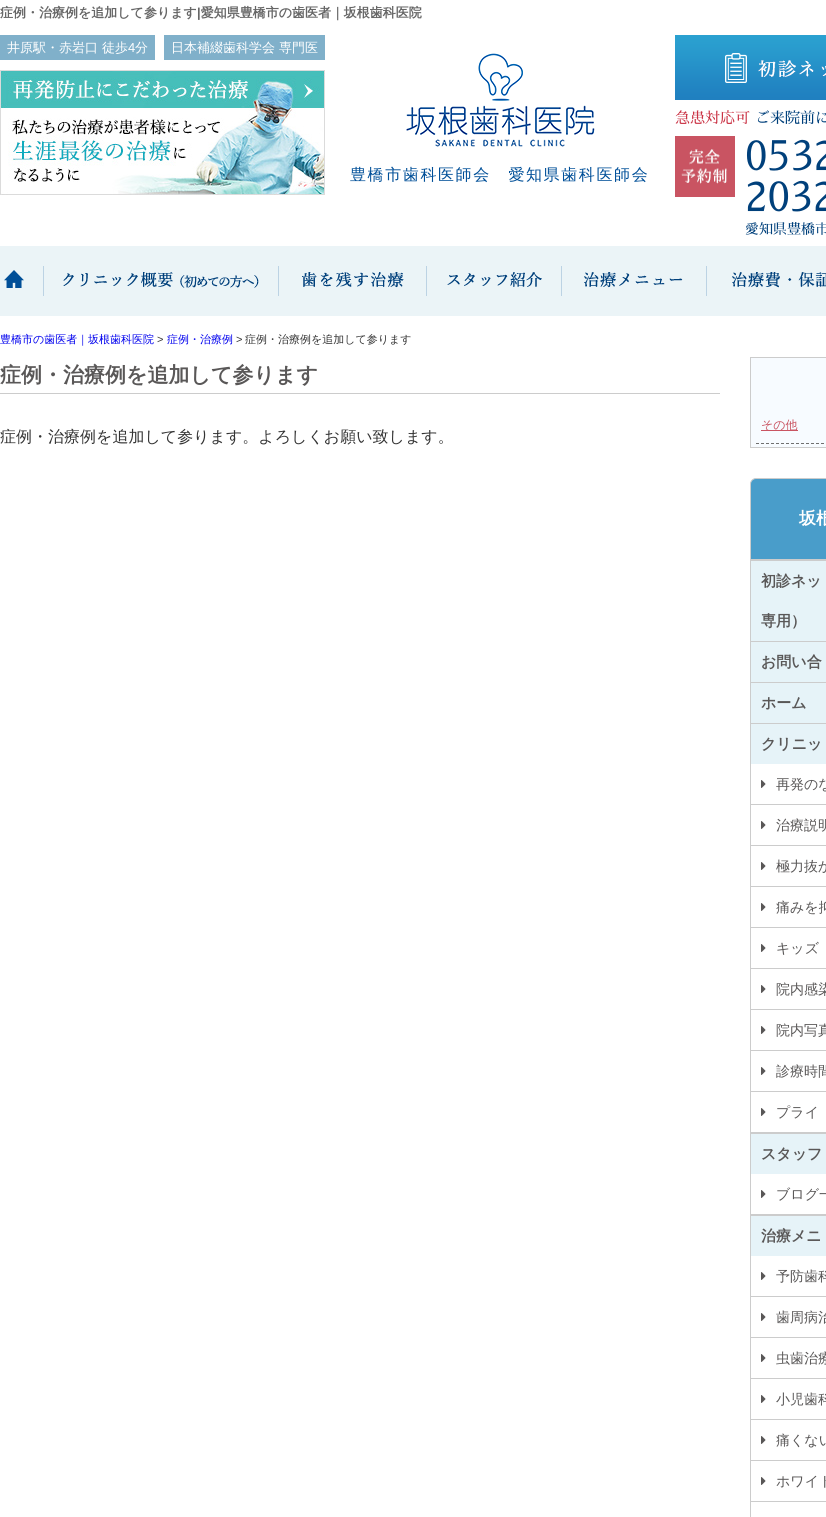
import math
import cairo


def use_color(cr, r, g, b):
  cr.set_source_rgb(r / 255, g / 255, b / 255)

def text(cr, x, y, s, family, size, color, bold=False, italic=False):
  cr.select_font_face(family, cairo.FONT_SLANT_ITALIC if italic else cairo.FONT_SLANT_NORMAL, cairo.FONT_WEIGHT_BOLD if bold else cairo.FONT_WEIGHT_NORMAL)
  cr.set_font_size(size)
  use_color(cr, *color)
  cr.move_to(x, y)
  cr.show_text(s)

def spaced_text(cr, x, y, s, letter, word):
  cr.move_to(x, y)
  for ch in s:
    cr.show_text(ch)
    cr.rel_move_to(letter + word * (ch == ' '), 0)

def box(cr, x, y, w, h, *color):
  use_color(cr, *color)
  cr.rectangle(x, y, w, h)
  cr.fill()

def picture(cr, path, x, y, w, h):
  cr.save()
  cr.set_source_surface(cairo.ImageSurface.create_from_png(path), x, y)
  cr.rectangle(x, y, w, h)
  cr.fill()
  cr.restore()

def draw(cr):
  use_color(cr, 255, 255, 255)
  cr.paint()
  box(cr, 0, 35, 155, 25, 128, 176, 202)
  box(cr, 164, 35, 161, 25, 128, 176, 202)
  picture(cr, "img_01.png", 0, 70, 325, 125)
  picture(cr, "img_02.png", 406, 53, 189, 94)
  picture(cr, "img_03.png", 675, 35, 151, 65)
  picture(cr, "img_04.png", 675, 136, 60, 61)
  box(cr, 0, 246, 826, 70, 235, 244, 247)
  picture(cr, "img_05.png", 4, 266, 40, 30)
  picture(cr, "img_06.png", 63, 272, 196, 16)
  picture(cr, "img_07.png", 278, 266, 126, 30)
  picture(cr, "img_08.png", 426, 266, 116, 30)
  picture(cr, "img_09.png", 561, 266, 122, 30)
  picture(cr, "img_10.png", 706, 266, 120, 30)
  box(cr, 0, 393, 720, 1, 204, 204, 204)
  use_color(cr, 247, 251, 255)
  cr.rectangle(750.5, 357.5, 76, 90)
  cr.fill_preserve()
  use_color(cr, 204, 204, 204)
  cr.set_line_width(1)
  cr.stroke()
  cr.new_path()
  cr.move_to(756, 443.5)
  cr.line_to(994, 443.5)
  use_color(cr, 111, 111, 111)
  cr.set_dash([3, 2])
  cr.stroke()
  box(cr, 761, 430, 37, 1, 201, 84, 98)
  use_color(cr, 73, 157, 202)
  cr.new_path()
  cr.move_to(756, 478.5)
  cr.line_to(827, 478.5)
  cr.curve_to(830, 478.5, 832.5, 481, 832.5, 484)
  cr.line_to(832.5, 559.5)
  cr.line_to(750.5, 559.5)
  cr.line_to(750.5, 484)
  cr.curve_to(750.5, 481, 753, 478.5, 756, 478.5)
  cr.close_path()
  cr.fill_preserve()
  use_color(cr, 204, 204, 204)
  cr.set_dash([])
  cr.stroke()
  cr.rectangle(750.5, 560.5, 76, 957)
  cr.stroke()
  box(cr, 751, 561, 75, 80, 230, 243, 248)
  box(cr, 751, 641, 75, 1, 204, 204, 204)
  box(cr, 751, 642, 75, 40, 230, 243, 248)
  box(cr, 751, 682, 75, 1, 204, 204, 204)
  box(cr, 751, 683, 75, 40, 230, 243, 248)
  box(cr, 751, 723, 75, 1, 204, 204, 204)
  box(cr, 751, 724, 75, 40, 230, 243, 248)
  box(cr, 751, 1132, 75, 2, 204, 204, 204)
  box(cr, 751, 804, 75, 1, 204, 204, 204)
  picture(cr, "img_11.png", 761, 780, 5, 8)
  box(cr, 751, 845, 75, 1, 204, 204, 204)
  picture(cr, "img_11.png", 761, 821, 5, 8)
  box(cr, 751, 886, 75, 1, 204, 204, 204)
  picture(cr, "img_11.png", 761, 862, 5, 8)
  box(cr, 751, 927, 75, 1, 204, 204, 204)
  picture(cr, "img_11.png", 761, 903, 5, 8)
  box(cr, 751, 968, 75, 1, 204, 204, 204)
  picture(cr, "img_11.png", 761, 944, 5, 8)
  box(cr, 751, 1009, 75, 1, 204, 204, 204)
  picture(cr, "img_11.png", 761, 985, 5, 8)
  box(cr, 751, 1050, 75, 1, 204, 204, 204)
  picture(cr, "img_11.png", 761, 1026, 5, 8)
  box(cr, 751, 1091, 75, 1, 204, 204, 204)
  picture(cr, "img_11.png", 761, 1067, 5, 8)
  picture(cr, "img_11.png", 761, 1108, 5, 8)
  box(cr, 751, 1134, 75, 40, 230, 243, 248)
  box(cr, 751, 1214, 75, 2, 204, 204, 204)
  picture(cr, "img_11.png", 761, 1190, 5, 8)
  box(cr, 751, 1216, 75, 40, 230, 243, 248)
  box(cr, 751, 1296, 75, 1, 204, 204, 204)
  picture(cr, "img_11.png", 761, 1272, 5, 8)
  box(cr, 751, 1337, 75, 1, 204, 204, 204)
  picture(cr, "img_11.png", 761, 1313, 5, 8)
  box(cr, 751, 1378, 75, 1, 204, 204, 204)
  picture(cr, "img_11.png", 761, 1354, 5, 8)
  box(cr, 751, 1419, 75, 1, 204, 204, 204)
  picture(cr, "img_11.png", 761, 1395, 5, 8)
  box(cr, 751, 1460, 75, 1, 204, 204, 204)
  picture(cr, "img_11.png", 761, 1436, 5, 8)
  box(cr, 751, 1501, 75, 1, 204, 204, 204)
  picture(cr, "img_11.png", 761, 1477, 5, 8)
  text(cr, 0, 17, "症例・治療例を追加して参ります 愛知県豊橋市の歯医者｜坂根歯科医院", "WenQuanYi Zen Hei", 13, (102, 102, 102), bold=True)
  text(cr, 197, 17, "|", "Liberation Sans", 13, (102, 102, 102), bold=True)
  text(cr, 7, 52, "井原駅・赤岩口 徒歩", "WenQuanYi Zen Hei Medium", 13, (255, 255, 255))
  text(cr, 128, 52, "4", "Liberation Sans", 13, (255, 255, 255))
  text(cr, 135, 52, "分", "WenQuanYi Zen Hei Medium", 13, (255, 255, 255))
  text(cr, 171, 52, "日本補綴歯科学会 専門医", "WenQuanYi Zen Hei Medium", 13, (255, 255, 255))
  cr.set_font_size(16)
  use_color(cr, 0, 79, 152)
  spaced_text(cr, 350, 180, "豊橋市歯科医師会　愛知県歯科医師会", 1.6, 0)
  text(cr, 675, 123, "急患対応可", "Sawarabi Mincho", 15, (202, 50, 68))
  text(cr, 755, 123, "ご来院前に", "Sawarabi Mincho", 15, (0, 64, 123))
  text(cr, 745, 170, "0532", "Sawarabi Mincho", 41, (0, 64, 123))
  text(cr, 745, 211, "2032", "Sawarabi Mincho", 41, (0, 64, 123))
  text(cr, 745, 234, "愛知県豊橋市", "Sawarabi Mincho", 14, (0, 64, 123))
  text(cr, 0, 343, "豊橋市の歯医者｜坂根歯科医院", "WenQuanYi Zen Hei Medium", 11, (0, 0, 238))
  text(cr, 157, 343, ">", "Liberation Sans", 11, (51, 51, 51))
  text(cr, 167, 343, "症例・治療例", "WenQuanYi Zen Hei Medium", 11, (0, 0, 238))
  text(cr, 236, 343, ">", "Liberation Sans", 11, (51, 51, 51))
  text(cr, 245, 343, "症例・治療例を追加して参ります", "WenQuanYi Zen Hei Medium", 11, (51, 51, 51))
  text(cr, 0, 382, "症例・治療例を追加して参ります", "WenQuanYi Zen Hei", 21, (89, 87, 87), bold=True)
  text(cr, 0, 442, "症例・治療例を追加して参ります。よろしくお願い致します。", "WenQuanYi Zen Hei Medium", 16, (51, 51, 51))
  text(cr, 761, 429, "その他", "WenQuanYi Zen Hei Medium", 12, (201, 84, 98))
  text(cr, 799, 524, "坂根", "WenQuanYi Zen Hei", 17, (255, 255, 255), bold=True)
  text(cr, 761, 586, "初診ネッ", "WenQuanYi Zen Hei", 15, (89, 87, 87), bold=True)
  text(cr, 761, 626, "専用）", "WenQuanYi Zen Hei", 15, (89, 87, 87), bold=True)
  text(cr, 761, 667, "お問い合", "WenQuanYi Zen Hei", 15, (89, 87, 87), bold=True)
  text(cr, 761, 708, "ホーム", "WenQuanYi Zen Hei", 15, (89, 87, 87), bold=True)
  text(cr, 761, 749, "クリニッ", "WenQuanYi Zen Hei", 15, (89, 87, 87), bold=True)
  text(cr, 776, 789, "再発のな", "WenQuanYi Zen Hei Medium", 14, (89, 87, 87))
  text(cr, 776, 830, "治療説明", "WenQuanYi Zen Hei Medium", 14, (89, 87, 87))
  text(cr, 776, 871, "極力抜か", "WenQuanYi Zen Hei Medium", 14, (89, 87, 87))
  text(cr, 776, 912, "痛みを抑", "WenQuanYi Zen Hei Medium", 14, (89, 87, 87))
  text(cr, 776, 953, "キッズ", "WenQuanYi Zen Hei Medium", 14, (89, 87, 87))
  text(cr, 776, 994, "院内感染", "WenQuanYi Zen Hei Medium", 14, (89, 87, 87))
  text(cr, 776, 1035, "院内写真", "WenQuanYi Zen Hei Medium", 14, (89, 87, 87))
  text(cr, 776, 1076, "診療時間", "WenQuanYi Zen Hei Medium", 14, (89, 87, 87))
  text(cr, 776, 1117, "プライ", "WenQuanYi Zen Hei Medium", 14, (89, 87, 87))
  text(cr, 761, 1159, "スタッフ", "WenQuanYi Zen Hei", 15, (89, 87, 87), bold=True)
  text(cr, 776, 1199, "ブログ一", "WenQuanYi Zen Hei Medium", 14, (89, 87, 87))
  text(cr, 761, 1241, "治療メニ", "WenQuanYi Zen Hei", 15, (89, 87, 87), bold=True)
  text(cr, 776, 1281, "予防歯科", "WenQuanYi Zen Hei Medium", 14, (89, 87, 87))
  text(cr, 776, 1322, "歯周病治", "WenQuanYi Zen Hei Medium", 14, (89, 87, 87))
  text(cr, 776, 1363, "虫歯治療", "WenQuanYi Zen Hei Medium", 14, (89, 87, 87))
  text(cr, 776, 1404, "小児歯科", "WenQuanYi Zen Hei Medium", 14, (89, 87, 87))
  text(cr, 776, 1445, "痛くない", "WenQuanYi Zen Hei Medium", 14, (89, 87, 87))
  text(cr, 776, 1486, "ホワイト", "WenQuanYi Zen Hei Medium", 14, (89, 87, 87))


surface = cairo.ImageSurface(cairo.FORMAT_RGB24, 826, 1517)
cr = cairo.Context(surface)
options = cairo.FontOptions()
options.set_hint_metrics(cairo.HINT_METRICS_OFF)
options.set_hint_style(cairo.HINT_STYLE_NONE)
cr.set_font_options(options)
cr.set_miter_limit(4)
draw(cr)
surface.write_to_png("out.png")
